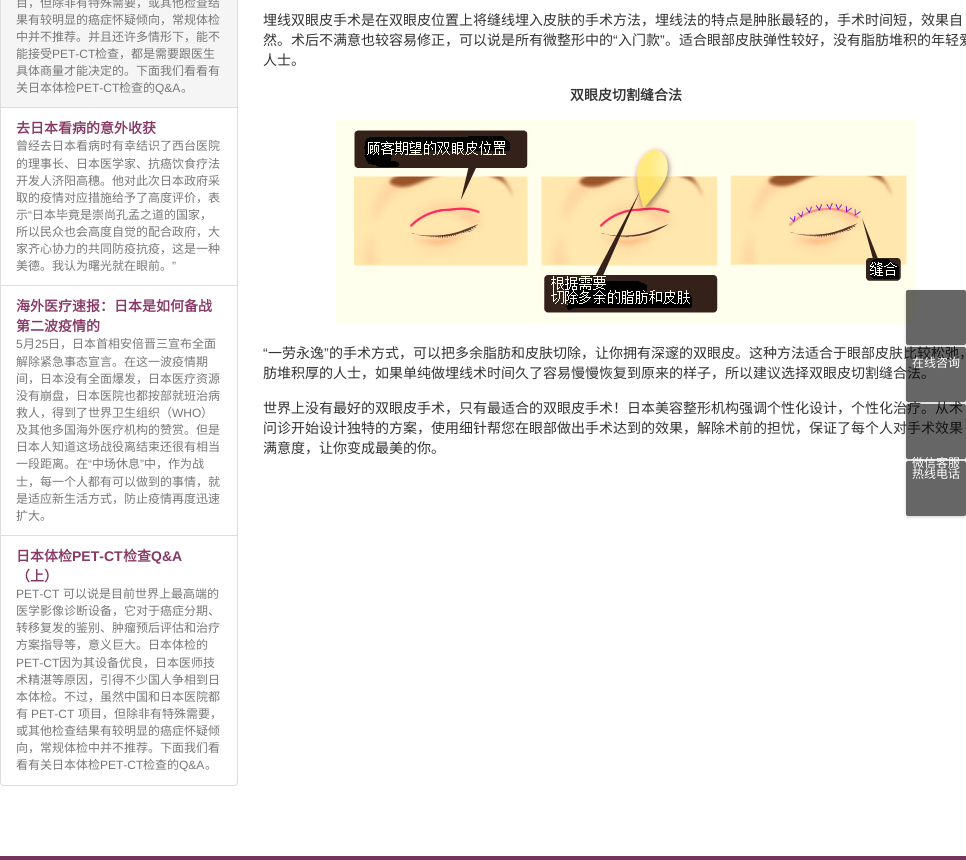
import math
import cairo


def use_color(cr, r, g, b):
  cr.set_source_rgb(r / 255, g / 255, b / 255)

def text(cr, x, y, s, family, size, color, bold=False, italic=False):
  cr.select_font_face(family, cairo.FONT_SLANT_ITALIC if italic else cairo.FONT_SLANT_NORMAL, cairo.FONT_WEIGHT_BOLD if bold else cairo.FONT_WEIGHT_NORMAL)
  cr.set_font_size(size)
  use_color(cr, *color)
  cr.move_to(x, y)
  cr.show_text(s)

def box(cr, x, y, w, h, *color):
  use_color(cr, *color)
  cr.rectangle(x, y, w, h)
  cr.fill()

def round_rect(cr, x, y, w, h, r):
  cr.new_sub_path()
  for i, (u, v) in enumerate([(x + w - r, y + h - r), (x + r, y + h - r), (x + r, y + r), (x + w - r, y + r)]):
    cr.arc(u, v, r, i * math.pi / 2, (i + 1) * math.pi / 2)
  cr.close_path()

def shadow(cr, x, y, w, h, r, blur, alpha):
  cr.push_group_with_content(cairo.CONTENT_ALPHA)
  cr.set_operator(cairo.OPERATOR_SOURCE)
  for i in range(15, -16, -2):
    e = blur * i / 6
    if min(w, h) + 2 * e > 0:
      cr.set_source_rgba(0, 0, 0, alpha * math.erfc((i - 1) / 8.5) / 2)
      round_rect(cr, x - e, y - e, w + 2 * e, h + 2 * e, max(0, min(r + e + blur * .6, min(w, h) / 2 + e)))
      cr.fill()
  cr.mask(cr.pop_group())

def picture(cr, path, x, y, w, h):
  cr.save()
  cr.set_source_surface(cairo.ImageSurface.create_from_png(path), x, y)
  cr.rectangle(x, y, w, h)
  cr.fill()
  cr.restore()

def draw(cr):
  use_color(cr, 255, 255, 255)
  cr.paint()
  use_color(cr, 245, 245, 245)
  cr.rectangle(0.5, -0.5, 237, 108)
  cr.fill_preserve()
  use_color(cr, 221, 221, 221)
  cr.set_line_width(1)
  cr.stroke()
  cr.rectangle(0.5, 107.5, 237, 178)
  cr.stroke()
  cr.rectangle(0.5, 285.5, 237, 250)
  cr.stroke()
  use_color(cr, 255, 255, 255)
  cr.new_path()
  cr.move_to(0.5, 535.5)
  cr.line_to(237.5, 535.5)
  cr.line_to(237.5, 782)
  cr.curve_to(237.5, 784, 236, 785.5, 234, 785.5)
  cr.line_to(4, 785.5)
  cr.curve_to(2, 785.5, 0.5, 784, 0.5, 782)
  cr.close_path()
  cr.fill_preserve()
  use_color(cr, 221, 221, 221)
  cr.stroke()
  picture(cr, "img_01.png", 336, 120, 579, 203)
  cr.save()
  cr.set_fill_rule(cairo.FILL_RULE_EVEN_ODD)
  cr.new_path()
  cr.move_to(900, 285)
  cr.line_to(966, 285)
  cr.line_to(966, 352)
  cr.line_to(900, 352)
  cr.close_path()
  cr.move_to(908, 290)
  cr.line_to(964, 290)
  cr.curve_to(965, 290, 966, 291, 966, 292)
  cr.line_to(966, 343)
  cr.curve_to(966, 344, 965, 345, 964, 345)
  cr.line_to(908, 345)
  cr.curve_to(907, 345, 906, 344, 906, 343)
  cr.line_to(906, 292)
  cr.curve_to(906, 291, 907, 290, 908, 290)
  cr.close_path()
  cr.clip()
  use_color(cr, 0, 0, 0)
  shadow(cr, 906, 291, 60, 55, 2, 1.5, 0.2)
  cr.restore()
  cr.set_source_rgba(0, 0, 0, 0.6)
  round_rect(cr, 906, 290, 60, 55, 2)
  cr.fill()
  cr.save()
  cr.set_fill_rule(cairo.FILL_RULE_EVEN_ODD)
  cr.new_path()
  cr.move_to(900, 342)
  cr.line_to(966, 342)
  cr.line_to(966, 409)
  cr.line_to(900, 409)
  cr.close_path()
  cr.move_to(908, 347)
  cr.line_to(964, 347)
  cr.curve_to(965, 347, 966, 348, 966, 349)
  cr.line_to(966, 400)
  cr.curve_to(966, 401, 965, 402, 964, 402)
  cr.line_to(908, 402)
  cr.curve_to(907, 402, 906, 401, 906, 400)
  cr.line_to(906, 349)
  cr.curve_to(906, 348, 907, 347, 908, 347)
  cr.close_path()
  cr.clip()
  use_color(cr, 0, 0, 0)
  shadow(cr, 906, 348, 60, 55, 2, 1.5, 0.2)
  cr.restore()
  box(cr, 0, 856, 966, 4, 113, 54, 89)
  text(cr, 16, 7, "目，但除非有特殊需要，或其他检查结", "Noto Sans CJK SC", 12, (120, 120, 120))
  text(cr, 16, 24, "果有较明显的癌症怀疑倾向，常规体检", "Noto Sans CJK SC", 12, (120, 120, 120))
  text(cr, 16, 41, "中并不推荐。并且还许多情形下，能不", "Noto Sans CJK SC", 12, (120, 120, 120))
  text(cr, 16, 58, "能接受", "Noto Sans CJK SC", 12, (120, 120, 120))
  text(cr, 52, 58, "PET-CT", "Liberation Sans", 12, (120, 120, 120))
  text(cr, 95, 58, "检查，都是需要跟医生", "Noto Sans CJK SC", 12, (120, 120, 120))
  text(cr, 16, 75, "具体商量才能决定的。下面我们看看有", "Noto Sans CJK SC", 12, (120, 120, 120))
  text(cr, 16, 92, "关日本体检", "Noto Sans CJK SC", 12, (120, 120, 120))
  text(cr, 76, 92, "PET-CT", "Liberation Sans", 12, (120, 120, 120))
  text(cr, 119, 92, "检查的", "Noto Sans CJK SC", 12, (120, 120, 120))
  text(cr, 155, 92, "Q&A", "Liberation Sans", 12, (120, 120, 120))
  text(cr, 181, 92, "。", "Noto Sans CJK SC", 12, (120, 120, 120))
  text(cr, 16, 133, "去日本看病的意外收获", "Noto Sans CJK SC", 14, (136, 56, 102), bold=True)
  text(cr, 16, 150, "曾经去日本看病时有幸结识了西台医院", "Noto Sans CJK SC", 12, (120, 120, 120))
  text(cr, 16, 168, "的理事长、日本医学家、抗癌饮食疗法", "Noto Sans CJK SC", 12, (120, 120, 120))
  text(cr, 16, 185, "开发人济阳高穗。他对此次日本政府采", "Noto Sans CJK SC", 12, (120, 120, 120))
  text(cr, 16, 202, "取的疫情对应措施给予了高度评价，表", "Noto Sans CJK SC", 12, (120, 120, 120))
  text(cr, 16, 219, "示", "Noto Sans CJK SC", 12, (120, 120, 120))
  text(cr, 28, 219, "“", "Liberation Sans", 12, (120, 120, 120))
  text(cr, 32, 219, "日本毕竟是崇尚孔孟之道的国家，", "Noto Sans CJK SC", 12, (120, 120, 120))
  text(cr, 16, 236, "所以民众也会高度自觉的配合政府，大", "Noto Sans CJK SC", 12, (120, 120, 120))
  text(cr, 16, 253, "家齐心协力的共同防疫抗疫，这是一种", "Noto Sans CJK SC", 12, (120, 120, 120))
  text(cr, 16, 270, "美德。我认为曙光就在眼前。", "Noto Sans CJK SC", 12, (120, 120, 120))
  text(cr, 172, 270, "”", "Liberation Sans", 12, (120, 120, 120))
  text(cr, 16, 311, "海外医疗速报：日本是如何备战", "Noto Sans CJK SC", 14, (136, 56, 102), bold=True)
  text(cr, 16, 331, "第二波疫情的", "Noto Sans CJK SC", 14, (136, 56, 102), bold=True)
  text(cr, 16, 348, "5", "Liberation Sans", 12, (120, 120, 120))
  text(cr, 23, 348, "月", "Noto Sans CJK SC", 12, (120, 120, 120))
  text(cr, 35, 348, "25", "Liberation Sans", 12, (120, 120, 120))
  text(cr, 48, 348, "日，日本首相安倍晋三宣布全面", "Noto Sans CJK SC", 12, (120, 120, 120))
  text(cr, 16, 366, "解除紧急事态宣言。在这一波疫情期", "Noto Sans CJK SC", 12, (120, 120, 120))
  text(cr, 16, 383, "间，日本没有全面爆发，日本医疗资源", "Noto Sans CJK SC", 12, (120, 120, 120))
  text(cr, 16, 400, "没有崩盘，日本医院也都按部就班治病", "Noto Sans CJK SC", 12, (120, 120, 120))
  text(cr, 16, 417, "救人，得到了世界卫生组织（", "Noto Sans CJK SC", 12, (120, 120, 120))
  text(cr, 172, 417, "WHO", "Liberation Sans", 12, (120, 120, 120))
  text(cr, 201, 417, "）", "Noto Sans CJK SC", 12, (120, 120, 120))
  text(cr, 16, 434, "及其他多国海外医疗机构的赞赏。但是", "Noto Sans CJK SC", 12, (120, 120, 120))
  text(cr, 16, 451, "日本人知道这场战役离结束还很有相当", "Noto Sans CJK SC", 12, (120, 120, 120))
  text(cr, 16, 468, "一段距离。在", "Noto Sans CJK SC", 12, (120, 120, 120))
  text(cr, 88, 468, "“", "Liberation Sans", 12, (120, 120, 120))
  text(cr, 92, 468, "中场休息", "Noto Sans CJK SC", 12, (120, 120, 120))
  text(cr, 140, 468, "”", "Liberation Sans", 12, (120, 120, 120))
  text(cr, 144, 468, "中，作为战", "Noto Sans CJK SC", 12, (120, 120, 120))
  text(cr, 16, 486, "士，每一个人都有可以做到的事情，就", "Noto Sans CJK SC", 12, (120, 120, 120))
  text(cr, 16, 503, "是适应新生活方式，防止疫情再度迅速", "Noto Sans CJK SC", 12, (120, 120, 120))
  text(cr, 16, 520, "扩大。", "Noto Sans CJK SC", 12, (120, 120, 120))
  text(cr, 16, 561, "日本体检", "Noto Sans CJK SC", 14, (136, 56, 102), bold=True)
  text(cr, 72, 561, "PET-CT", "Liberation Sans", 14, (136, 56, 102), bold=True)
  text(cr, 123, 561, "检查", "Noto Sans CJK SC", 14, (136, 56, 102), bold=True)
  text(cr, 151, 561, "Q&A", "Liberation Sans", 14, (136, 56, 102), bold=True)
  text(cr, 16, 581, "（上）", "Noto Sans CJK SC", 14, (136, 56, 102), bold=True)
  text(cr, 16, 598, "PET-CT", "Liberation Sans", 12, (120, 120, 120))
  text(cr, 63, 598, "可以说是目前世界上最高端的", "Noto Sans CJK SC", 12, (120, 120, 120))
  text(cr, 16, 615, "医学影像诊断设备，它对于癌症分期、", "Noto Sans CJK SC", 12, (120, 120, 120))
  text(cr, 16, 632, "转移复发的鉴别、肿瘤预后评估和治疗", "Noto Sans CJK SC", 12, (120, 120, 120))
  text(cr, 16, 649, "方案指导等，意义巨大。日本体检的", "Noto Sans CJK SC", 12, (120, 120, 120))
  text(cr, 16, 667, "PET-CT", "Liberation Sans", 12, (120, 120, 120))
  text(cr, 59, 667, "因为其设备优良，日本医师技", "Noto Sans CJK SC", 12, (120, 120, 120))
  text(cr, 16, 684, "术精湛等原因，引得不少国人争相到日", "Noto Sans CJK SC", 12, (120, 120, 120))
  text(cr, 16, 701, "本体检。不过，虽然中国和日本医院都", "Noto Sans CJK SC", 12, (120, 120, 120))
  text(cr, 16, 718, "有", "Noto Sans CJK SC", 12, (120, 120, 120))
  text(cr, 31, 718, "PET-CT", "Liberation Sans", 12, (120, 120, 120))
  text(cr, 78, 718, "项目，但除非有特殊需要，", "Noto Sans CJK SC", 12, (120, 120, 120))
  text(cr, 16, 735, "或其他检查结果有较明显的癌症怀疑倾", "Noto Sans CJK SC", 12, (120, 120, 120))
  text(cr, 16, 752, "向，常规体检中并不推荐。下面我们看", "Noto Sans CJK SC", 12, (120, 120, 120))
  text(cr, 16, 769, "看有关日本体检", "Noto Sans CJK SC", 12, (120, 120, 120))
  text(cr, 100, 769, "PET-CT", "Liberation Sans", 12, (120, 120, 120))
  text(cr, 143, 769, "检查的", "Noto Sans CJK SC", 12, (120, 120, 120))
  text(cr, 179, 769, "Q&A", "Liberation Sans", 12, (120, 120, 120))
  text(cr, 205, 769, "。", "Noto Sans CJK SC", 12, (120, 120, 120))
  text(cr, 263, 25, "埋线双眼皮手术是在双眼皮位置上将缝线埋入皮肤的手术方法，埋线法的特点是肿胀最轻的，手术时间短，效果自", "Noto Sans CJK SC", 14, (51, 51, 51))
  text(cr, 263, 45, "然。术后不满意也较容易修正，可以说是所有微整形中的", "Noto Sans CJK SC", 14, (51, 51, 51))
  text(cr, 613, 45, "“", "Liberation Sans", 14, (51, 51, 51))
  text(cr, 618, 45, "入门款", "Noto Sans CJK SC", 14, (51, 51, 51))
  text(cr, 660, 45, "”", "Liberation Sans", 14, (51, 51, 51))
  text(cr, 665, 45, "。适合眼部皮肤弹性较好，没有脂肪堆积的年轻爱", "Noto Sans CJK SC", 14, (51, 51, 51))
  text(cr, 263, 65, "人士。", "Noto Sans CJK SC", 14, (51, 51, 51))
  text(cr, 570, 100, "双眼皮切割缝合法", "Noto Sans CJK SC", 14, (51, 51, 51), bold=True)
  text(cr, 263, 358, "“", "Liberation Sans", 14, (51, 51, 51))
  text(cr, 268, 358, "一劳永逸", "Noto Sans CJK SC", 14, (51, 51, 51))
  text(cr, 324, 358, "”", "Liberation Sans", 14, (51, 51, 51))
  text(cr, 329, 358, "的手术方式，可以把多余脂肪和皮肤切除，让你拥有深邃的双眼皮。这种方法适合于眼部皮肤比较松弛，", "Noto Sans CJK SC", 14, (51, 51, 51))
  text(cr, 263, 378, "肪堆积厚的人士，如果单纯做埋线术时间久了容易慢慢恢复到原来的样子，所以建议选择双眼皮切割缝合法。", "Noto Sans CJK SC", 14, (51, 51, 51))
  text(cr, 263, 413, "世界上没有最好的双眼皮手术，只有最适合的双眼皮手术！日本美容整形机构强调个性化设计，个性化治疗。从术", "Noto Sans CJK SC", 14, (51, 51, 51))
  text(cr, 263, 433, "问诊开始设计独特的方案，使用细针帮您在眼部做出手术达到的效果，解除术前的担忧，保证了每个人对手术效果", "Noto Sans CJK SC", 14, (51, 51, 51))
  text(cr, 263, 453, "满意度，让你变成最美的你。", "Noto Sans CJK SC", 14, (51, 51, 51))
  cr.set_source_rgba(0, 0, 0, 0.6)
  round_rect(cr, 906, 347, 60, 55, 2)
  cr.fill()
  text(cr, 912, 367, "在线咨询", "Noto Sans CJK SC", 12, (255, 255, 255))
  cr.save()
  cr.set_fill_rule(cairo.FILL_RULE_EVEN_ODD)
  cr.new_path()
  cr.move_to(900, 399)
  cr.line_to(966, 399)
  cr.line_to(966, 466)
  cr.line_to(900, 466)
  cr.close_path()
  cr.move_to(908, 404)
  cr.line_to(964, 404)
  cr.curve_to(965, 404, 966, 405, 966, 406)
  cr.line_to(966, 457)
  cr.curve_to(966, 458, 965, 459, 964, 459)
  cr.line_to(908, 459)
  cr.curve_to(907, 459, 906, 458, 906, 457)
  cr.line_to(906, 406)
  cr.curve_to(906, 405, 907, 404, 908, 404)
  cr.close_path()
  cr.clip()
  use_color(cr, 0, 0, 0)
  shadow(cr, 906, 405, 60, 55, 2, 1.5, 0.2)
  cr.restore()
  cr.set_source_rgba(0, 0, 0, 0.6)
  round_rect(cr, 906, 404, 60, 55, 2)
  cr.fill()
  cr.save()
  cr.set_fill_rule(cairo.FILL_RULE_EVEN_ODD)
  cr.new_path()
  cr.move_to(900, 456)
  cr.line_to(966, 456)
  cr.line_to(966, 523)
  cr.line_to(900, 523)
  cr.close_path()
  cr.move_to(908, 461)
  cr.line_to(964, 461)
  cr.curve_to(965, 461, 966, 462, 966, 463)
  cr.line_to(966, 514)
  cr.curve_to(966, 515, 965, 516, 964, 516)
  cr.line_to(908, 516)
  cr.curve_to(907, 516, 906, 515, 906, 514)
  cr.line_to(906, 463)
  cr.curve_to(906, 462, 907, 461, 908, 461)
  cr.close_path()
  cr.clip()
  use_color(cr, 0, 0, 0)
  shadow(cr, 906, 462, 60, 55, 2, 1.5, 0.2)
  cr.restore()
  round_rect(cr, 906, 461, 60, 55, 2)
  cr.fill()
  text(cr, 912, 467, "微信客服", "Noto Sans CJK SC", 12, (255, 255, 255))
  text(cr, 912, 478, "热线电话", "Noto Sans CJK SC", 12, (255, 255, 255))


surface = cairo.ImageSurface(cairo.FORMAT_RGB24, 966, 860)
cr = cairo.Context(surface)
options = cairo.FontOptions()
options.set_hint_metrics(cairo.HINT_METRICS_OFF)
options.set_hint_style(cairo.HINT_STYLE_NONE)
cr.set_font_options(options)
cr.set_miter_limit(4)
draw(cr)
surface.write_to_png("out.png")
